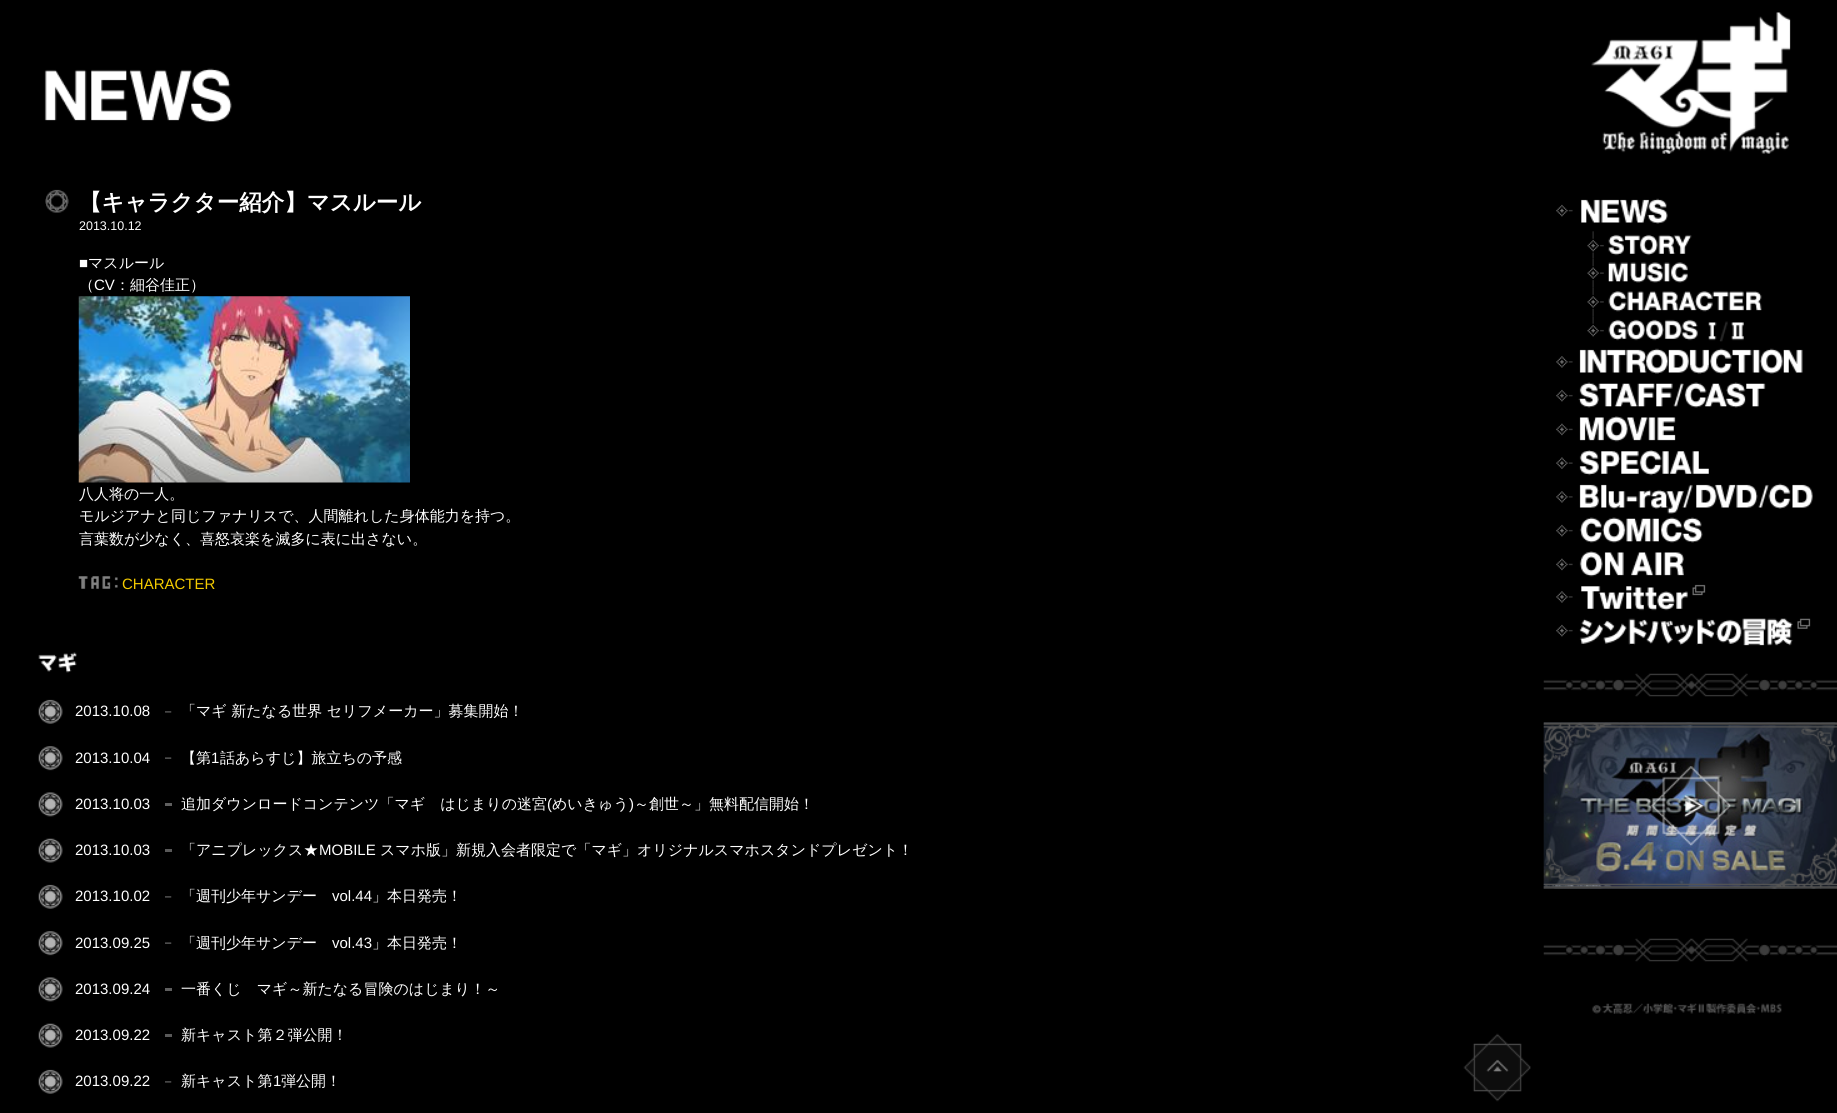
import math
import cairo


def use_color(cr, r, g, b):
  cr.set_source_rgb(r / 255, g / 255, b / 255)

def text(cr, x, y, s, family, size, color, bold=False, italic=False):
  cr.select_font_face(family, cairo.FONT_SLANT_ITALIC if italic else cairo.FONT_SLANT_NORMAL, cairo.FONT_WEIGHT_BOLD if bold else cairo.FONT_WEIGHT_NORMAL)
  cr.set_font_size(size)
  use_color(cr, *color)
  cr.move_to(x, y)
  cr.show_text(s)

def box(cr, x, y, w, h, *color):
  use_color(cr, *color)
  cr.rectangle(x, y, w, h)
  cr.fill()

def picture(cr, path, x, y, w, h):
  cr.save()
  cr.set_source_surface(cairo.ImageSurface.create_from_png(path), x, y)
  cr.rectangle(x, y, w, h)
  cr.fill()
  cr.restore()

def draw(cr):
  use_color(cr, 0, 0, 0)
  cr.paint()
  picture(cr, "img_01.png", 44, 68, 188, 54)
  picture(cr, "img_02.png", 45, 189, 24, 24)
  picture(cr, "img_03.png", 78, 296, 332, 187)
  picture(cr, "img_04.png", 78, 576, 40, 13)
  picture(cr, "img_05.png", 38, 652, 39, 21)
  picture(cr, "img_06.png", 38, 699, 25, 25)
  picture(cr, "img_07.png", 165, 711, 7, 2)
  picture(cr, "img_08.png", 38, 746, 25, 25)
  picture(cr, "img_09.png", 165, 757, 7, 2)
  picture(cr, "img_10.png", 38, 792, 25, 25)
  box(cr, 165, 803, 7, 3, 95, 95, 95)
  picture(cr, "img_11.png", 38, 838, 25, 25)
  box(cr, 165, 849, 7, 3, 89, 89, 89)
  picture(cr, "img_06.png", 38, 884, 25, 25)
  picture(cr, "img_07.png", 165, 896, 7, 2)
  picture(cr, "img_08.png", 38, 931, 25, 25)
  picture(cr, "img_09.png", 165, 942, 7, 2)
  picture(cr, "img_10.png", 38, 977, 25, 25)
  box(cr, 165, 988, 7, 3, 95, 95, 95)
  picture(cr, "img_11.png", 38, 1023, 25, 25)
  box(cr, 165, 1034, 7, 3, 89, 89, 89)
  picture(cr, "img_06.png", 38, 1069, 25, 25)
  picture(cr, "img_07.png", 165, 1081, 7, 2)
  picture(cr, "img_12.png", 1463, 1033, 68, 69)
  picture(cr, "img_13.png", 1591, 12, 200, 142)
  picture(cr, "img_14.png", 1543, 673, 294, 24)
  picture(cr, "img_15.png", 1556, 198, 112, 26)
  picture(cr, "img_16.png", 1587, 231, 105, 28)
  picture(cr, "img_17.png", 1587, 259, 101, 29)
  picture(cr, "img_18.png", 1587, 287, 175, 30)
  picture(cr, "img_19.png", 1587, 316, 141, 26)
  picture(cr, "img_20.png", 1731, 322, 13, 19)
  picture(cr, "img_21.png", 1556, 348, 247, 26)
  picture(cr, "img_22.png", 1556, 382, 210, 26)
  picture(cr, "img_23.png", 1556, 416, 120, 26)
  picture(cr, "img_24.png", 1556, 450, 153, 26)
  picture(cr, "img_25.png", 1556, 483, 257, 31)
  picture(cr, "img_26.png", 1556, 517, 147, 26)
  picture(cr, "img_27.png", 1556, 551, 128, 26)
  picture(cr, "img_28.png", 1556, 584, 150, 27)
  picture(cr, "img_29.png", 1556, 618, 255, 28)
  picture(cr, "img_30.png", 1543, 722, 294, 167)
  picture(cr, "img_31.png", 1543, 722, 294, 167)
  picture(cr, "img_14.png", 1543, 938, 294, 24)
  picture(cr, "img_32.png", 1592, 1003, 190, 11)
  text(cr, 79, 210, "【キャラクター紹介】マスルール", "WenQuanYi Zen Hei", 22.5, (255, 255, 255), bold=True)
  text(cr, 79, 230, "2013.10.12", "Liberation Sans", 12.5, (255, 255, 255))
  text(cr, 79, 268, "■", "Liberation Sans", 15, (255, 255, 255))
  text(cr, 88, 268, "マスルール", "WenQuanYi Zen Hei Medium", 15, (255, 255, 255))
  text(cr, 79, 290, "（", "WenQuanYi Zen Hei Medium", 15, (255, 255, 255))
  text(cr, 94, 290, "CV", "Liberation Sans", 15, (255, 255, 255))
  text(cr, 115, 290, "：細谷佳正）", "WenQuanYi Zen Hei Medium", 15, (255, 255, 255))
  text(cr, 79, 499, "八人将の一人。", "WenQuanYi Zen Hei Medium", 15, (255, 255, 255))
  text(cr, 79, 521, "モルジアナと同じファナリスで、人間離れした身体能力を持つ。", "WenQuanYi Zen Hei Medium", 15, (255, 255, 255))
  text(cr, 79, 544, "言葉数が少なく、喜怒哀楽を滅多に表に出さない。", "WenQuanYi Zen Hei Medium", 15, (255, 255, 255))
  text(cr, 122, 589, "CHARACTER", "Liberation Sans", 15, (243, 202, 0))
  text(cr, 75, 716, "2013.10.08", "Liberation Sans", 15, (255, 255, 255))
  text(cr, 181, 716, "「マギ 新たなる世界 セリフメーカー」募集開始！", "WenQuanYi Zen Hei Medium", 15, (255, 255, 255))
  text(cr, 75, 763, "2013.10.04", "Liberation Sans", 15, (255, 255, 255))
  text(cr, 181, 763, "【第", "WenQuanYi Zen Hei Medium", 15, (255, 255, 255))
  text(cr, 211, 763, "1", "Liberation Sans", 15, (255, 255, 255))
  text(cr, 220, 763, "話あらすじ】旅立ちの予感", "WenQuanYi Zen Hei Medium", 15, (255, 255, 255))
  text(cr, 75, 809, "2013.10.03", "Liberation Sans", 15, (255, 255, 255))
  text(cr, 181, 809, "追加ダウンロードコンテンツ「マギ　はじまりの迷宮", "WenQuanYi Zen Hei Medium", 15, (255, 255, 255))
  text(cr, 547, 809, "(", "Liberation Sans", 15, (255, 255, 255))
  text(cr, 552, 809, "めいきゅう", "WenQuanYi Zen Hei Medium", 15, (255, 255, 255))
  text(cr, 629, 809, ")", "Liberation Sans", 15, (255, 255, 255))
  text(cr, 634, 809, "～創世～」無料配信開始！", "WenQuanYi Zen Hei Medium", 15, (255, 255, 255))
  text(cr, 75, 855, "2013.10.03", "Liberation Sans", 15, (255, 255, 255))
  text(cr, 181, 855, "「アニプレックス★", "WenQuanYi Zen Hei Medium", 15, (255, 255, 255))
  text(cr, 319, 855, "MOBILE", "Liberation Sans", 15, (255, 255, 255))
  text(cr, 380, 855, "スマホ版」新規入会者限定で「マギ」オリジナルスマホスタンドプレゼント！", "WenQuanYi Zen Hei Medium", 15, (255, 255, 255))
  text(cr, 75, 901, "2013.10.02", "Liberation Sans", 15, (255, 255, 255))
  text(cr, 181, 901, "「週刊少年サンデー", "WenQuanYi Zen Hei Medium", 15, (255, 255, 255))
  text(cr, 332, 901, "vol.44", "Liberation Sans", 15, (255, 255, 255))
  text(cr, 372, 901, "」本日発売！", "WenQuanYi Zen Hei Medium", 15, (255, 255, 255))
  text(cr, 75, 948, "2013.09.25", "Liberation Sans", 15, (255, 255, 255))
  text(cr, 181, 948, "「週刊少年サンデー", "WenQuanYi Zen Hei Medium", 15, (255, 255, 255))
  text(cr, 332, 948, "vol.43", "Liberation Sans", 15, (255, 255, 255))
  text(cr, 372, 948, "」本日発売！", "WenQuanYi Zen Hei Medium", 15, (255, 255, 255))
  text(cr, 75, 994, "2013.09.24", "Liberation Sans", 15, (255, 255, 255))
  text(cr, 181, 994, "一番くじ　マギ～新たなる冒険のはじまり！～", "WenQuanYi Zen Hei Medium", 15, (255, 255, 255))
  text(cr, 75, 1040, "2013.09.22", "Liberation Sans", 15, (255, 255, 255))
  text(cr, 181, 1040, "新キャスト第２弾公開！", "WenQuanYi Zen Hei Medium", 15, (255, 255, 255))
  text(cr, 75, 1086, "2013.09.22", "Liberation Sans", 15, (255, 255, 255))
  text(cr, 181, 1086, "新キャスト第", "WenQuanYi Zen Hei Medium", 15, (255, 255, 255))
  text(cr, 273, 1086, "1", "Liberation Sans", 15, (255, 255, 255))
  text(cr, 281, 1086, "弾公開！", "WenQuanYi Zen Hei Medium", 15, (255, 255, 255))


surface = cairo.ImageSurface(cairo.FORMAT_RGB24, 1837, 1113)
cr = cairo.Context(surface)
options = cairo.FontOptions()
options.set_hint_metrics(cairo.HINT_METRICS_OFF)
options.set_hint_style(cairo.HINT_STYLE_NONE)
cr.set_font_options(options)
cr.set_miter_limit(4)
draw(cr)
surface.write_to_png("out.png")
